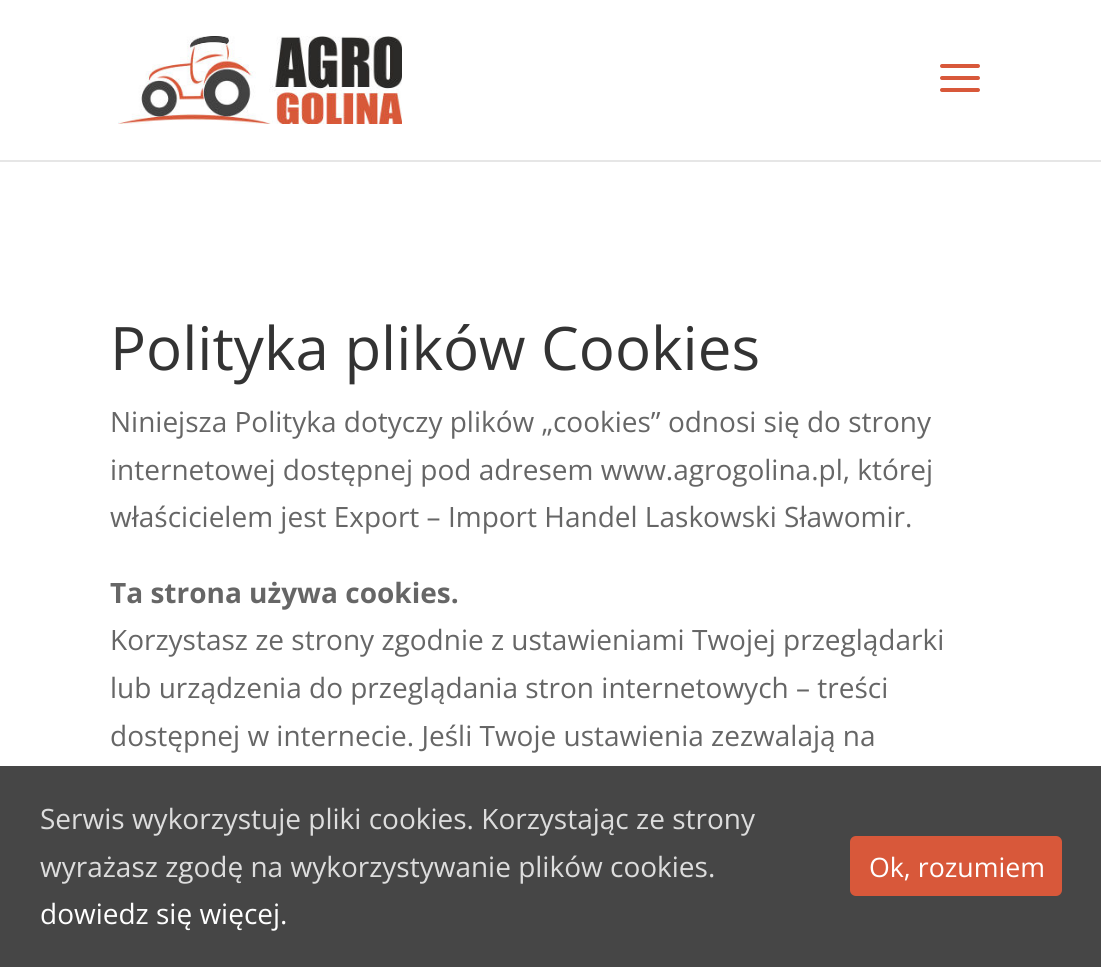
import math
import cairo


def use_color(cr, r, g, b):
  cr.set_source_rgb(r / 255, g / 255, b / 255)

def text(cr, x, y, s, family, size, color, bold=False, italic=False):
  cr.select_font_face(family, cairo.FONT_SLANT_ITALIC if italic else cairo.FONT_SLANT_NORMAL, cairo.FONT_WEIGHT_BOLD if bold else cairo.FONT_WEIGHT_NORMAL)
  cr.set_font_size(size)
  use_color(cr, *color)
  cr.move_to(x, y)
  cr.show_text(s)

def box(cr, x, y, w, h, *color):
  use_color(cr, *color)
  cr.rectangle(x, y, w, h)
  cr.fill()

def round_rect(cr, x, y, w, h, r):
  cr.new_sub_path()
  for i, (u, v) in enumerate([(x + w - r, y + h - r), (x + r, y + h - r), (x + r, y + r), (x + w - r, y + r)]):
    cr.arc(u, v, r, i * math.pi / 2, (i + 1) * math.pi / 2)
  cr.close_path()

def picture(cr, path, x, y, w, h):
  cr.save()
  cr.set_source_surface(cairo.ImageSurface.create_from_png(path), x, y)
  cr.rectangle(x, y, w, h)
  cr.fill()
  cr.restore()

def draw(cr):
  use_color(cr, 255, 255, 255)
  cr.paint()
  box(cr, 0, 160, 1101, 2, 230, 230, 230)
  picture(cr, "img_01.png", 118, 36, 284, 88)
  picture(cr, "img_02.png", 940, 64, 40, 28)
  box(cr, 0, 766, 1101, 201, 70, 70, 70)
  use_color(cr, 216, 88, 58)
  round_rect(cr, 850, 836, 212, 60, 6)
  cr.fill()
  text(cr, 110, 370, "Polityka plików Cookies", "Open Sans", 60, (51, 51, 51))
  text(cr, 110, 432, "Niniejsza Polityka dotyczy plików „cookies” odnosi się do strony", "Open Sans", 28, (102, 102, 102))
  text(cr, 110, 480, "internetowej dostępnej pod adresem www.agrogolina.pl, której", "Open Sans", 28, (102, 102, 102))
  text(cr, 110, 527, "właścicielem jest Export – Import Handel Laskowski Sławomir.", "Open Sans", 28, (102, 102, 102))
  text(cr, 110, 603, "Ta strona używa cookies.", "Open Sans", 28, (102, 102, 102), bold=True)
  text(cr, 110, 650, "Korzystasz ze strony zgodnie z ustawieniami Twojej przeglądarki", "Open Sans", 28, (102, 102, 102))
  text(cr, 110, 698, "lub urządzenia do przeglądania stron internetowych – treści", "Open Sans", 28, (102, 102, 102))
  text(cr, 110, 746, "dostępnej w internecie. Jeśli Twoje ustawienia zezwalają na", "Open Sans", 28, (102, 102, 102))
  text(cr, 40, 829, "Serwis wykorzystuje pliki cookies. Korzystając ze strony", "Open Sans", 28, (221, 221, 221))
  text(cr, 40, 877, "wyrażasz zgodę na wykorzystywanie plików cookies.", "Open Sans", 28, (221, 221, 221))
  text(cr, 40, 924, "dowiedz się więcej.", "Open Sans", 28, (255, 255, 255))
  text(cr, 869, 877, "Ok, rozumiem", "Open Sans", 26.75, (255, 255, 255))


surface = cairo.ImageSurface(cairo.FORMAT_RGB24, 1101, 967)
cr = cairo.Context(surface)
options = cairo.FontOptions()
options.set_hint_metrics(cairo.HINT_METRICS_OFF)
options.set_hint_style(cairo.HINT_STYLE_NONE)
cr.set_font_options(options)
cr.set_miter_limit(4)
draw(cr)
surface.write_to_png("out.png")
